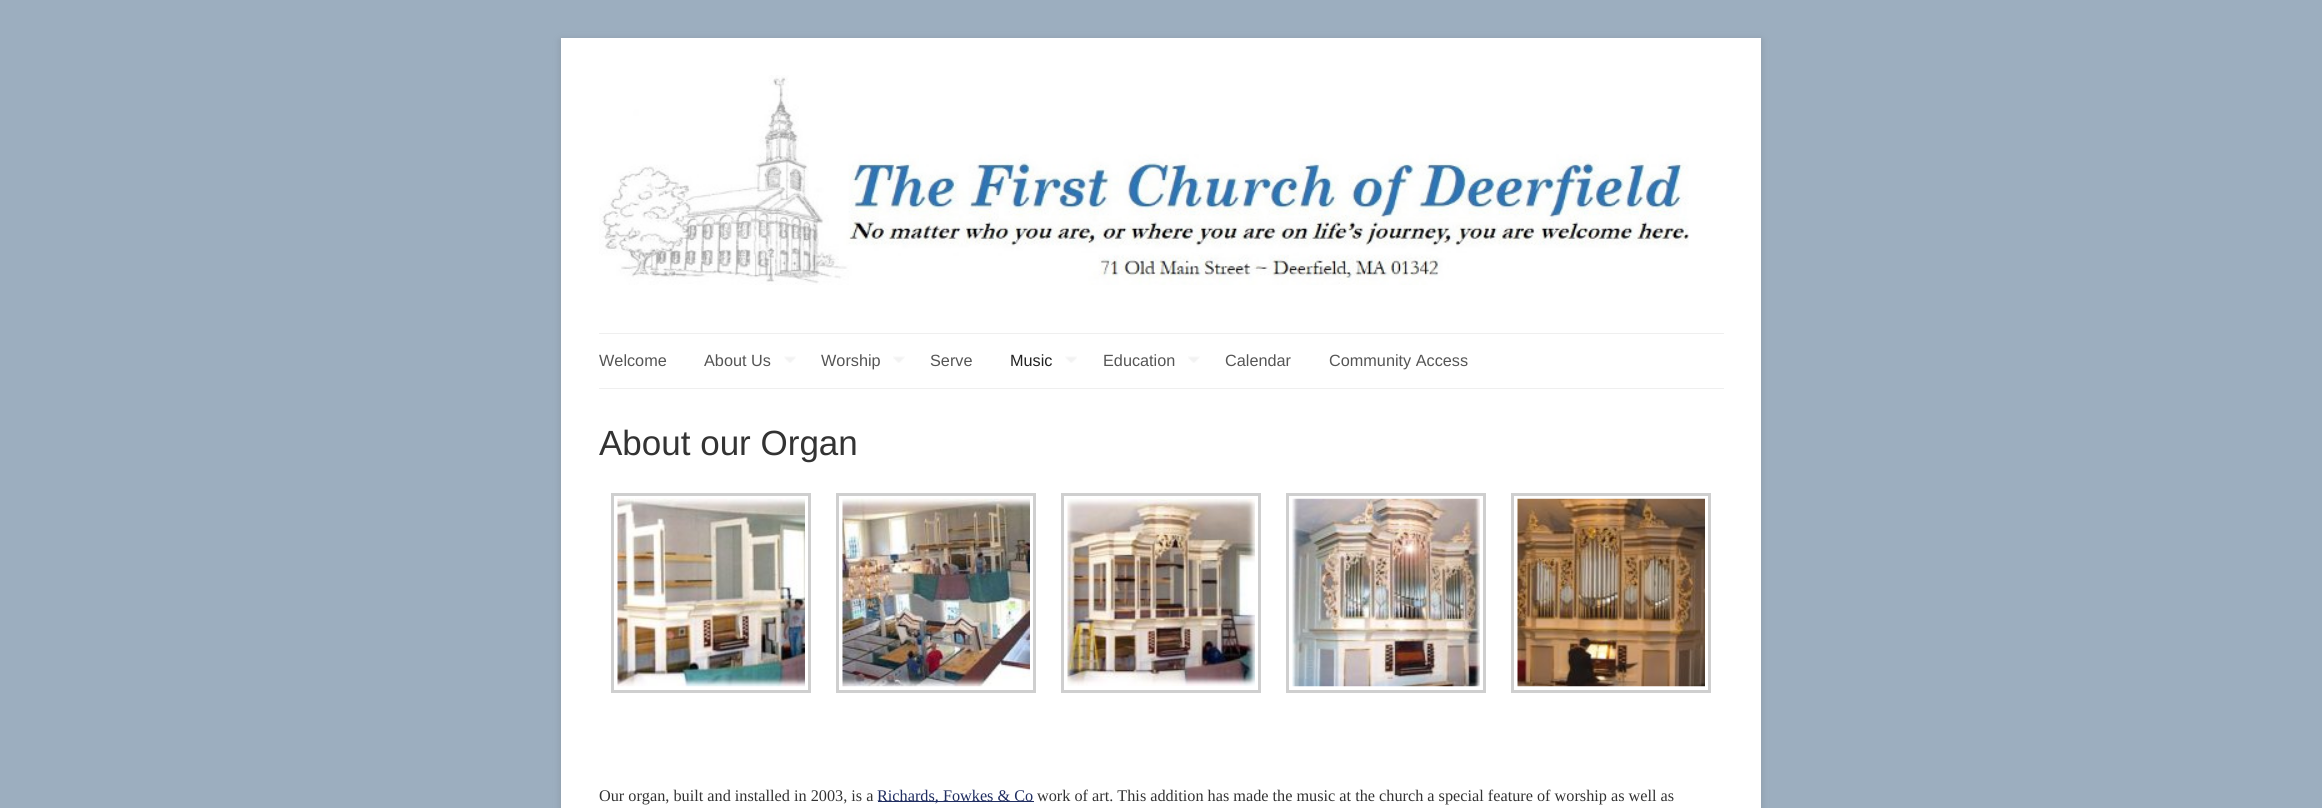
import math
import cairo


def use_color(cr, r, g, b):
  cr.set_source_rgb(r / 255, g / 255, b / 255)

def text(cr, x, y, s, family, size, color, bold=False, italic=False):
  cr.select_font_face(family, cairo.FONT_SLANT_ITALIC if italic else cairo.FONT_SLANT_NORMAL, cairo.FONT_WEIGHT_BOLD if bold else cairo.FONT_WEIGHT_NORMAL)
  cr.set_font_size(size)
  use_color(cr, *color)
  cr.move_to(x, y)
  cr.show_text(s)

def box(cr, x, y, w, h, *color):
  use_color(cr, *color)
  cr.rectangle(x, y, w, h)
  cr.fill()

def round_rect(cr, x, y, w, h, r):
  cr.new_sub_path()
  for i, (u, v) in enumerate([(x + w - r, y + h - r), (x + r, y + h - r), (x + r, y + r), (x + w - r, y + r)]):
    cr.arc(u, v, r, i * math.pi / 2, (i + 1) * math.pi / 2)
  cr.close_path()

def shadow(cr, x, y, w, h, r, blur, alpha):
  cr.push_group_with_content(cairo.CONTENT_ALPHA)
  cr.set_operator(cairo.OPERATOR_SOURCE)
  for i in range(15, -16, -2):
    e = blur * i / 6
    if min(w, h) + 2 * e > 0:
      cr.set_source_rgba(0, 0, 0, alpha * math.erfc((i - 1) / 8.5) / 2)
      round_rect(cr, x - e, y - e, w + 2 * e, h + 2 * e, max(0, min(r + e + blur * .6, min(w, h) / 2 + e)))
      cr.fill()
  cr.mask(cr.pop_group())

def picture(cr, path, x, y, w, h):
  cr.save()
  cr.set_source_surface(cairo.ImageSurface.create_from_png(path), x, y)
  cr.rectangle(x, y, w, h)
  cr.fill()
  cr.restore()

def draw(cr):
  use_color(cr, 156, 174, 191)
  cr.paint()
  use_color(cr, 100, 100, 100)
  shadow(cr, 561, 40, 1200, 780, 0, 4, 0.3)
  box(cr, 561, 38, 1200, 770, 255, 255, 255)
  picture(cr, "img_01.png", 599, 75, 1090, 210)
  box(cr, 599, 333, 1125, 1, 239, 239, 239)
  box(cr, 599, 388, 1125, 1, 239, 239, 239)
  picture(cr, "img_02.png", 784, 356, 12, 7)
  picture(cr, "img_03.png", 893, 356, 12, 7)
  picture(cr, "img_04.png", 1065, 356, 12, 7)
  picture(cr, "img_03.png", 1188, 356, 12, 7)
  cr.rectangle(612.5, 494.5, 197, 197)
  use_color(cr, 207, 207, 207)
  cr.set_line_width(3)
  cr.stroke()
  picture(cr, "img_05.png", 617, 498, 188, 189)
  cr.rectangle(837.5, 494.5, 197, 197)
  cr.stroke()
  picture(cr, "img_06.png", 842, 498, 188, 189)
  cr.rectangle(1062.5, 494.5, 197, 197)
  cr.stroke()
  picture(cr, "img_07.png", 1067, 499, 188, 187)
  cr.rectangle(1287.5, 494.5, 197, 197)
  cr.stroke()
  picture(cr, "img_08.png", 1292, 498, 188, 189)
  cr.rectangle(1512.5, 494.5, 197, 197)
  cr.stroke()
  picture(cr, "img_09.png", 1517, 498, 188, 189)
  box(cr, 878, 801, 156, 1, 31, 45, 97)
  text(cr, 599, 366, "Welcome", "Liberation Sans", 16.25, (85, 85, 85))
  text(cr, 704, 366, "About Us", "Liberation Sans", 16.25, (85, 85, 85))
  text(cr, 821, 366, "Worship", "Liberation Sans", 16.25, (85, 85, 85))
  text(cr, 930, 366, "Serve", "Liberation Sans", 16.25, (85, 85, 85))
  text(cr, 1010, 366, "Music", "Liberation Sans", 16.25, (34, 34, 34))
  text(cr, 1103, 366, "Education", "Liberation Sans", 16.25, (85, 85, 85))
  text(cr, 1225, 366, "Calendar", "Liberation Sans", 16.25, (85, 85, 85))
  text(cr, 1329, 366, "Community Access", "Liberation Sans", 16.25, (85, 85, 85))
  text(cr, 599, 455, "About our Organ", "Liberation Sans", 35, (51, 51, 51))
  text(cr, 599, 801, "Our organ, built and installed in 2003, is a", "Liberation Serif", 16.25, (51, 51, 51))
  text(cr, 877, 801, "Richards, Fowkes & Co", "Liberation Serif", 16.25, (31, 45, 97))
  text(cr, 1037, 801, "work of art. This addition has made the music at the church a special feature of worship as well as", "Liberation Serif", 16.25, (51, 51, 51))


surface = cairo.ImageSurface(cairo.FORMAT_RGB24, 2322, 808)
cr = cairo.Context(surface)
options = cairo.FontOptions()
options.set_hint_metrics(cairo.HINT_METRICS_OFF)
options.set_hint_style(cairo.HINT_STYLE_NONE)
cr.set_font_options(options)
cr.set_miter_limit(4)
draw(cr)
surface.write_to_png("out.png")
